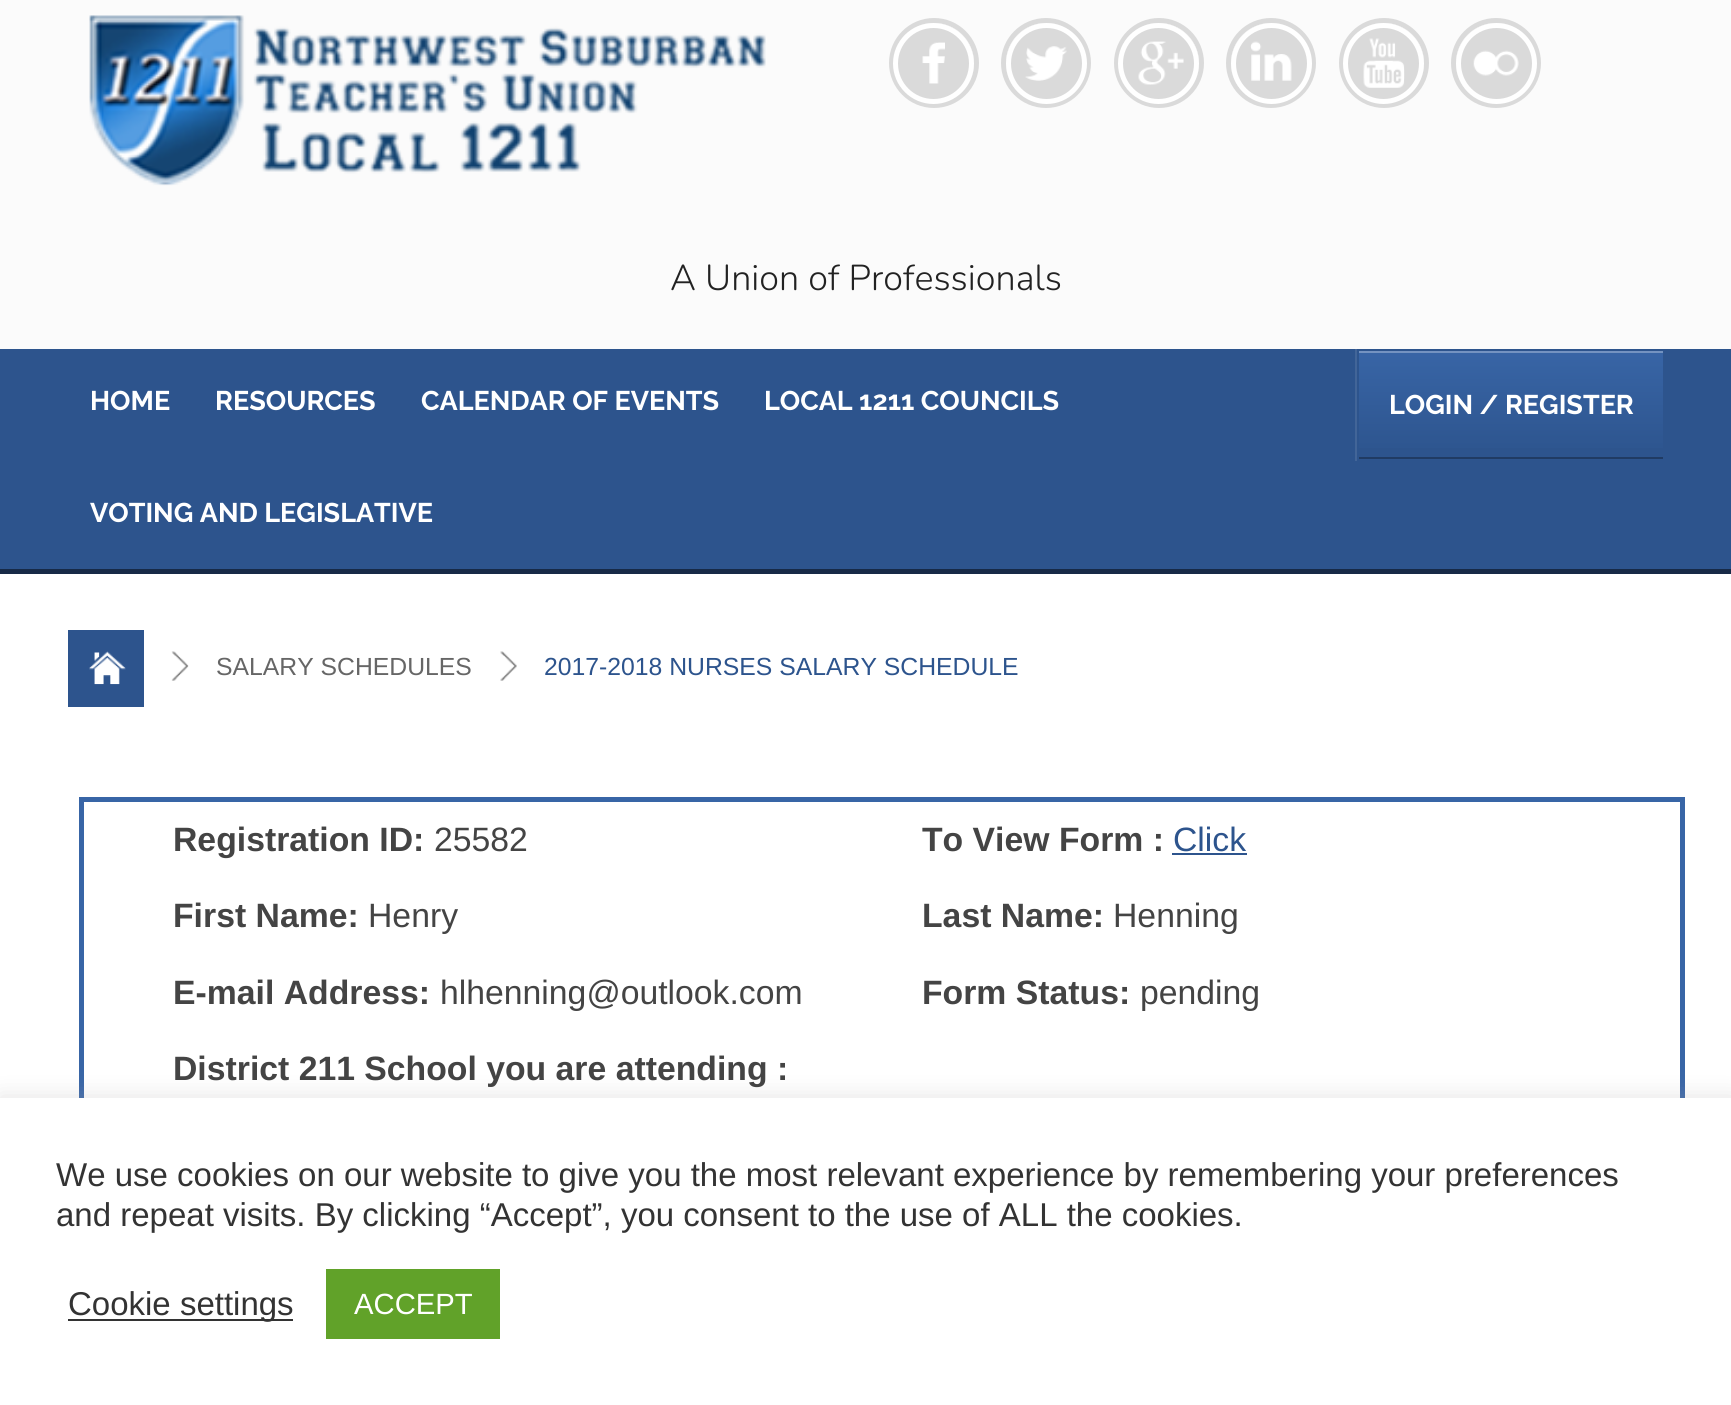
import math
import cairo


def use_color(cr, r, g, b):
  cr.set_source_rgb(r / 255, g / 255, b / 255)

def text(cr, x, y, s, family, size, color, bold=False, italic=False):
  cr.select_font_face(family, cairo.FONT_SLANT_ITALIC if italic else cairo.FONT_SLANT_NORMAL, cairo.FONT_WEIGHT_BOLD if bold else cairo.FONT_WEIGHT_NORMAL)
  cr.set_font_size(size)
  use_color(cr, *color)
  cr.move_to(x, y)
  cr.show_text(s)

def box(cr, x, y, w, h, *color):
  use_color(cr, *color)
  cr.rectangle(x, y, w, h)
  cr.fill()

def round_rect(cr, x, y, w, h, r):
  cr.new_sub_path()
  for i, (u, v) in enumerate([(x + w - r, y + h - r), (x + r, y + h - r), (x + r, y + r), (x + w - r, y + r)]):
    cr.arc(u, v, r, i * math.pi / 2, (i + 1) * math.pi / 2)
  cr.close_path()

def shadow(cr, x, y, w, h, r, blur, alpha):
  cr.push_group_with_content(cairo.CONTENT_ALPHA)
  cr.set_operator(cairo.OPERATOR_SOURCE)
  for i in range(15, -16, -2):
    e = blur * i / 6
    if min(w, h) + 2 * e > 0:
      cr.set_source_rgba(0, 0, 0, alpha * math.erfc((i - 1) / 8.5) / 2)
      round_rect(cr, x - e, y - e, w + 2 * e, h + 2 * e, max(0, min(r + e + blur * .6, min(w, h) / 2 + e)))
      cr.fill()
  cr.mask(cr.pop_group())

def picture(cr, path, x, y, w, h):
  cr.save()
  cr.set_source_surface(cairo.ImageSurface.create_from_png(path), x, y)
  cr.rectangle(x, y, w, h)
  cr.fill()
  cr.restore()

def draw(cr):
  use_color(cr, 255, 255, 255)
  cr.paint()
  box(cr, 0, 0, 1731, 349, 251, 251, 251)
  picture(cr, "img_01.png", 89, 15, 677, 171)
  cr.arc(934, 63, 42.5, 0, 2 * math.pi)
  use_color(cr, 218, 218, 218)
  cr.set_line_width(5)
  cr.stroke()
  cr.arc(933.5, 63.5, 40.5, 0, 2 * math.pi)
  cr.fill()
  picture(cr, "img_02.png", 922, 42, 23, 42)
  cr.arc(933.5, 63.5, 38, 0, 2 * math.pi)
  use_color(cr, 255, 255, 255)
  cr.stroke()
  cr.arc(1046, 63, 42.5, 0, 2 * math.pi)
  use_color(cr, 218, 218, 218)
  cr.stroke()
  cr.arc(1046.5, 63.5, 40.5, 0, 2 * math.pi)
  cr.fill()
  picture(cr, "img_03.png", 1025, 46, 42, 35)
  cr.arc(1046.5, 63.5, 38, 0, 2 * math.pi)
  use_color(cr, 255, 255, 255)
  cr.stroke()
  cr.arc(1159, 63, 42.5, 0, 2 * math.pi)
  use_color(cr, 218, 218, 218)
  cr.stroke()
  cr.arc(1158.5, 63.5, 40.5, 0, 2 * math.pi)
  cr.fill()
  picture(cr, "img_04.png", 1138, 41, 46, 44)
  cr.arc(1158.5, 63.5, 38, 0, 2 * math.pi)
  use_color(cr, 255, 255, 255)
  cr.stroke()
  cr.arc(1271, 63, 42.5, 0, 2 * math.pi)
  use_color(cr, 218, 218, 218)
  cr.stroke()
  cr.arc(1271.5, 63.5, 40.5, 0, 2 * math.pi)
  cr.fill()
  picture(cr, "img_05.png", 1250, 41, 42, 40)
  cr.arc(1271.5, 63.5, 38, 0, 2 * math.pi)
  use_color(cr, 255, 255, 255)
  cr.stroke()
  cr.arc(1384, 63, 42.5, 0, 2 * math.pi)
  use_color(cr, 218, 218, 218)
  cr.stroke()
  cr.arc(1383.5, 63.5, 40.5, 0, 2 * math.pi)
  cr.fill()
  picture(cr, "img_06.png", 1363, 38, 42, 50)
  cr.arc(1383.5, 63.5, 38, 0, 2 * math.pi)
  use_color(cr, 255, 255, 255)
  cr.stroke()
  cr.arc(1496, 63, 42.5, 0, 2 * math.pi)
  use_color(cr, 218, 218, 218)
  cr.stroke()
  cr.arc(1496.5, 63.5, 40.5, 0, 2 * math.pi)
  cr.fill()
  picture(cr, "img_07.png", 1473, 50, 46, 26)
  cr.arc(1496.5, 63.5, 38, 0, 2 * math.pi)
  use_color(cr, 255, 255, 255)
  cr.stroke()
  box(cr, 0, 349, 1731, 220, 45, 84, 141)
  box(cr, 0, 569, 1731, 5, 23, 42, 71)
  box(cr, 1355, 349, 2, 112, 66, 101, 152)
  gradient = cairo.LinearGradient(1511, 351, 1511, 459)
  gradient.add_color_stop_rgba(0, 0.22, 0.396, 0.651, 1)
  gradient.add_color_stop_rgba(1, 0.176, 0.329, 0.553, 1)
  cr.set_source(gradient)
  cr.rectangle(1359, 353, 304, 95)
  cr.fill()
  box(cr, 1359, 457, 304, 2, 32, 59, 99)
  box(cr, 1359, 351, 304, 2, 116, 147, 193)
  box(cr, 68, 630, 76, 77, 45, 84, 141)
  picture(cr, "img_08.png", 89, 651, 37, 34)
  picture(cr, "img_09.png", 171, 651, 18, 30)
  picture(cr, "img_10.png", 500, 651, 17, 30)
  cr.rectangle(81.5, 799.5, 1601, 364)
  use_color(cr, 56, 101, 166)
  cr.stroke()
  box(cr, 1172, 853, 75, 2, 45, 84, 141)
  use_color(cr, 172, 171, 171)
  shadow(cr, 0, 1096, 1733, 308, 0, 11, 0.3)
  box(cr, 0, 1098, 1731, 307, 255, 255, 255)
  box(cr, 68, 1319, 225, 2, 51, 51, 51)
  box(cr, 326, 1269, 174, 70, 97, 162, 41)
  text(cr, 670, 290, "A Union of Professionals", "Nunito Light", 36, (34, 34, 34))
  text(cr, 90, 410, "HOME", "Raleway", 27, (255, 255, 255), bold=True)
  text(cr, 215, 410, "RESOURCES", "Raleway", 27, (255, 255, 255), bold=True)
  text(cr, 421, 410, "CALENDAR OF EVENTS", "Raleway", 27, (255, 255, 255), bold=True)
  text(cr, 764, 410, "LOCAL 1211 COUNCILS", "Raleway", 27, (255, 255, 255), bold=True)
  text(cr, 90, 522, "VOTING AND LEGISLATIVE", "Raleway", 27, (255, 255, 255), bold=True)
  text(cr, 1389, 414, "LOGIN / REGISTER", "Raleway", 27, (255, 255, 255), bold=True)
  text(cr, 216, 675, "SALARY SCHEDULES", "Liberation Sans", 24.75, (102, 102, 102))
  text(cr, 544, 675, "2017-2018 NURSES SALARY SCHEDULE", "Liberation Sans", 24.75, (45, 84, 141))
  text(cr, 173, 851, "Registration ID:", "Liberation Sans", 33.75, (68, 68, 68), bold=True)
  text(cr, 434, 851, "25582", "Liberation Sans", 33.75, (68, 68, 68))
  text(cr, 922, 851, "To View Form :", "Liberation Sans", 33.75, (68, 68, 68), bold=True)
  text(cr, 1173, 851, "Click", "Liberation Sans", 33.75, (45, 84, 141))
  text(cr, 173, 927, "First Name:", "Liberation Sans", 33.75, (68, 68, 68), bold=True)
  text(cr, 368, 927, "Henry", "Liberation Sans", 33.75, (68, 68, 68))
  text(cr, 922, 927, "Last Name:", "Liberation Sans", 33.75, (68, 68, 68), bold=True)
  text(cr, 1113, 927, "Henning", "Liberation Sans", 33.75, (68, 68, 68))
  text(cr, 173, 1004, "E-mail Address:", "Liberation Sans", 33.75, (68, 68, 68), bold=True)
  text(cr, 440, 1004, "hlhenning@outlook.com", "Liberation Sans", 33.75, (68, 68, 68))
  text(cr, 922, 1004, "Form Status:", "Liberation Sans", 33.75, (68, 68, 68), bold=True)
  text(cr, 1140, 1004, "pending", "Liberation Sans", 33.75, (68, 68, 68))
  text(cr, 173, 1080, "District 211 School you are attending :", "Liberation Sans", 33.75, (68, 68, 68), bold=True)
  text(cr, 56, 1186, "We use cookies on our website to give you the most relevant experience by remembering your preferences", "Liberation Sans", 33, (51, 51, 51))
  text(cr, 56, 1226, "and repeat visits. By clicking “Accept”, you consent to the use of ALL the cookies.", "Liberation Sans", 33, (51, 51, 51))
  text(cr, 68, 1315, "Cookie settings", "Liberation Sans", 33, (51, 51, 51))
  text(cr, 354, 1314, "ACCEPT", "Liberation Sans", 29.25, (255, 255, 255))


surface = cairo.ImageSurface(cairo.FORMAT_RGB24, 1731, 1405)
cr = cairo.Context(surface)
options = cairo.FontOptions()
options.set_hint_metrics(cairo.HINT_METRICS_OFF)
options.set_hint_style(cairo.HINT_STYLE_NONE)
cr.set_font_options(options)
cr.set_miter_limit(4)
draw(cr)
surface.write_to_png("out.png")
